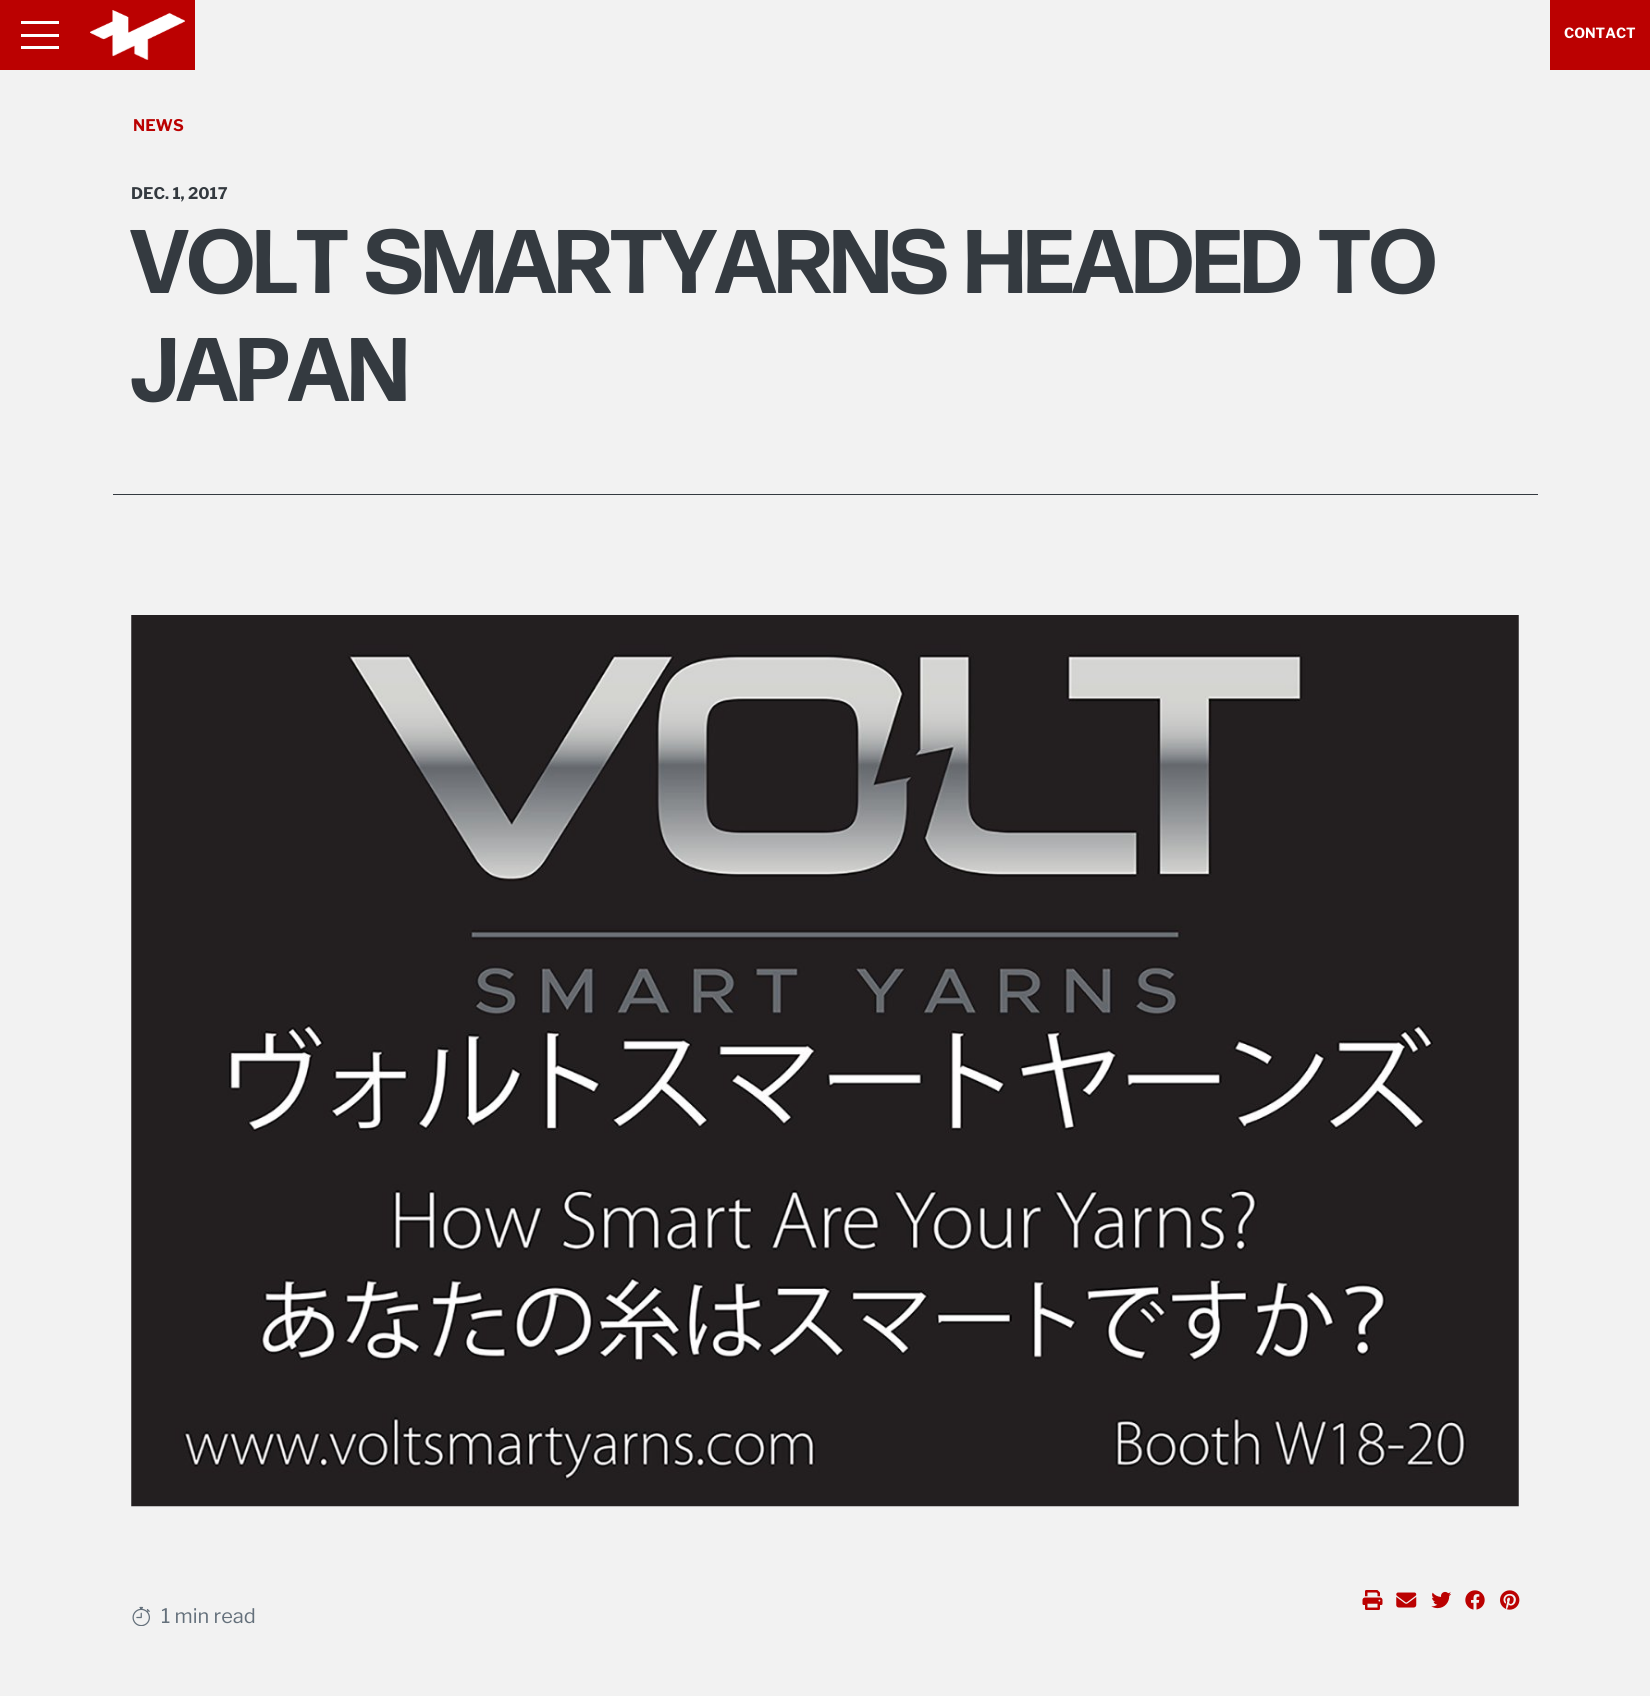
import math
import cairo


def use_color(cr, r, g, b):
  cr.set_source_rgb(r / 255, g / 255, b / 255)

def text(cr, x, y, s, family, size, color, bold=False, italic=False):
  cr.select_font_face(family, cairo.FONT_SLANT_ITALIC if italic else cairo.FONT_SLANT_NORMAL, cairo.FONT_WEIGHT_BOLD if bold else cairo.FONT_WEIGHT_NORMAL)
  cr.set_font_size(size)
  use_color(cr, *color)
  cr.move_to(x, y)
  cr.show_text(s)

def box(cr, x, y, w, h, *color):
  use_color(cr, *color)
  cr.rectangle(x, y, w, h)
  cr.fill()

def picture(cr, path, x, y, w, h):
  cr.save()
  cr.set_source_surface(cairo.ImageSurface.create_from_png(path), x, y)
  cr.rectangle(x, y, w, h)
  cr.fill()
  cr.restore()

def draw(cr):
  use_color(cr, 242, 242, 242)
  cr.paint()
  box(cr, 0, 0, 195, 70, 187, 1, 1)
  box(cr, 21, 21, 38, 3, 255, 255, 255)
  box(cr, 21, 34, 38, 3, 255, 255, 255)
  box(cr, 21, 46, 38, 3, 255, 255, 255)
  picture(cr, "img_01.png", 90, 10, 95, 50)
  box(cr, 1550, 0, 100, 70, 187, 1, 1)
  box(cr, 113, 494, 1425, 1, 52, 58, 64)
  picture(cr, "img_02.png", 131, 615, 1388, 892)
  picture(cr, "img_03.png", 1362, 1590, 21, 20)
  picture(cr, "img_04.png", 1396, 1592, 21, 16)
  picture(cr, "img_05.png", 1431, 1591, 20, 18)
  picture(cr, "img_06.png", 1465, 1590, 20, 20)
  picture(cr, "img_07.png", 1500, 1590, 20, 20)
  picture(cr, "img_08.png", 132, 1606, 18, 20)
  text(cr, 1564, 38, "CONTACT", "Libre Franklin", 14, (255, 255, 255), bold=True)
  text(cr, 133, 131, "NEWS", "Libre Franklin", 16, (187, 1, 1), bold=True)
  text(cr, 131, 199, "DEC. 1, 2017", "Libre Franklin", 16, (52, 58, 64), bold=True)
  text(cr, 131, 293, "VOLT SMARTYARNS HEADED TO", "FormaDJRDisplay", 90, (52, 58, 64), bold=True)
  text(cr, 131, 401, "JAPAN", "FormaDJRDisplay", 90, (52, 58, 64), bold=True)
  text(cr, 161, 1623, "1 min read", "Libre Franklin", 20, (100, 112, 123))


surface = cairo.ImageSurface(cairo.FORMAT_RGB24, 1650, 1696)
cr = cairo.Context(surface)
options = cairo.FontOptions()
options.set_hint_metrics(cairo.HINT_METRICS_OFF)
options.set_hint_style(cairo.HINT_STYLE_NONE)
cr.set_font_options(options)
cr.set_miter_limit(4)
draw(cr)
surface.write_to_png("out.png")
